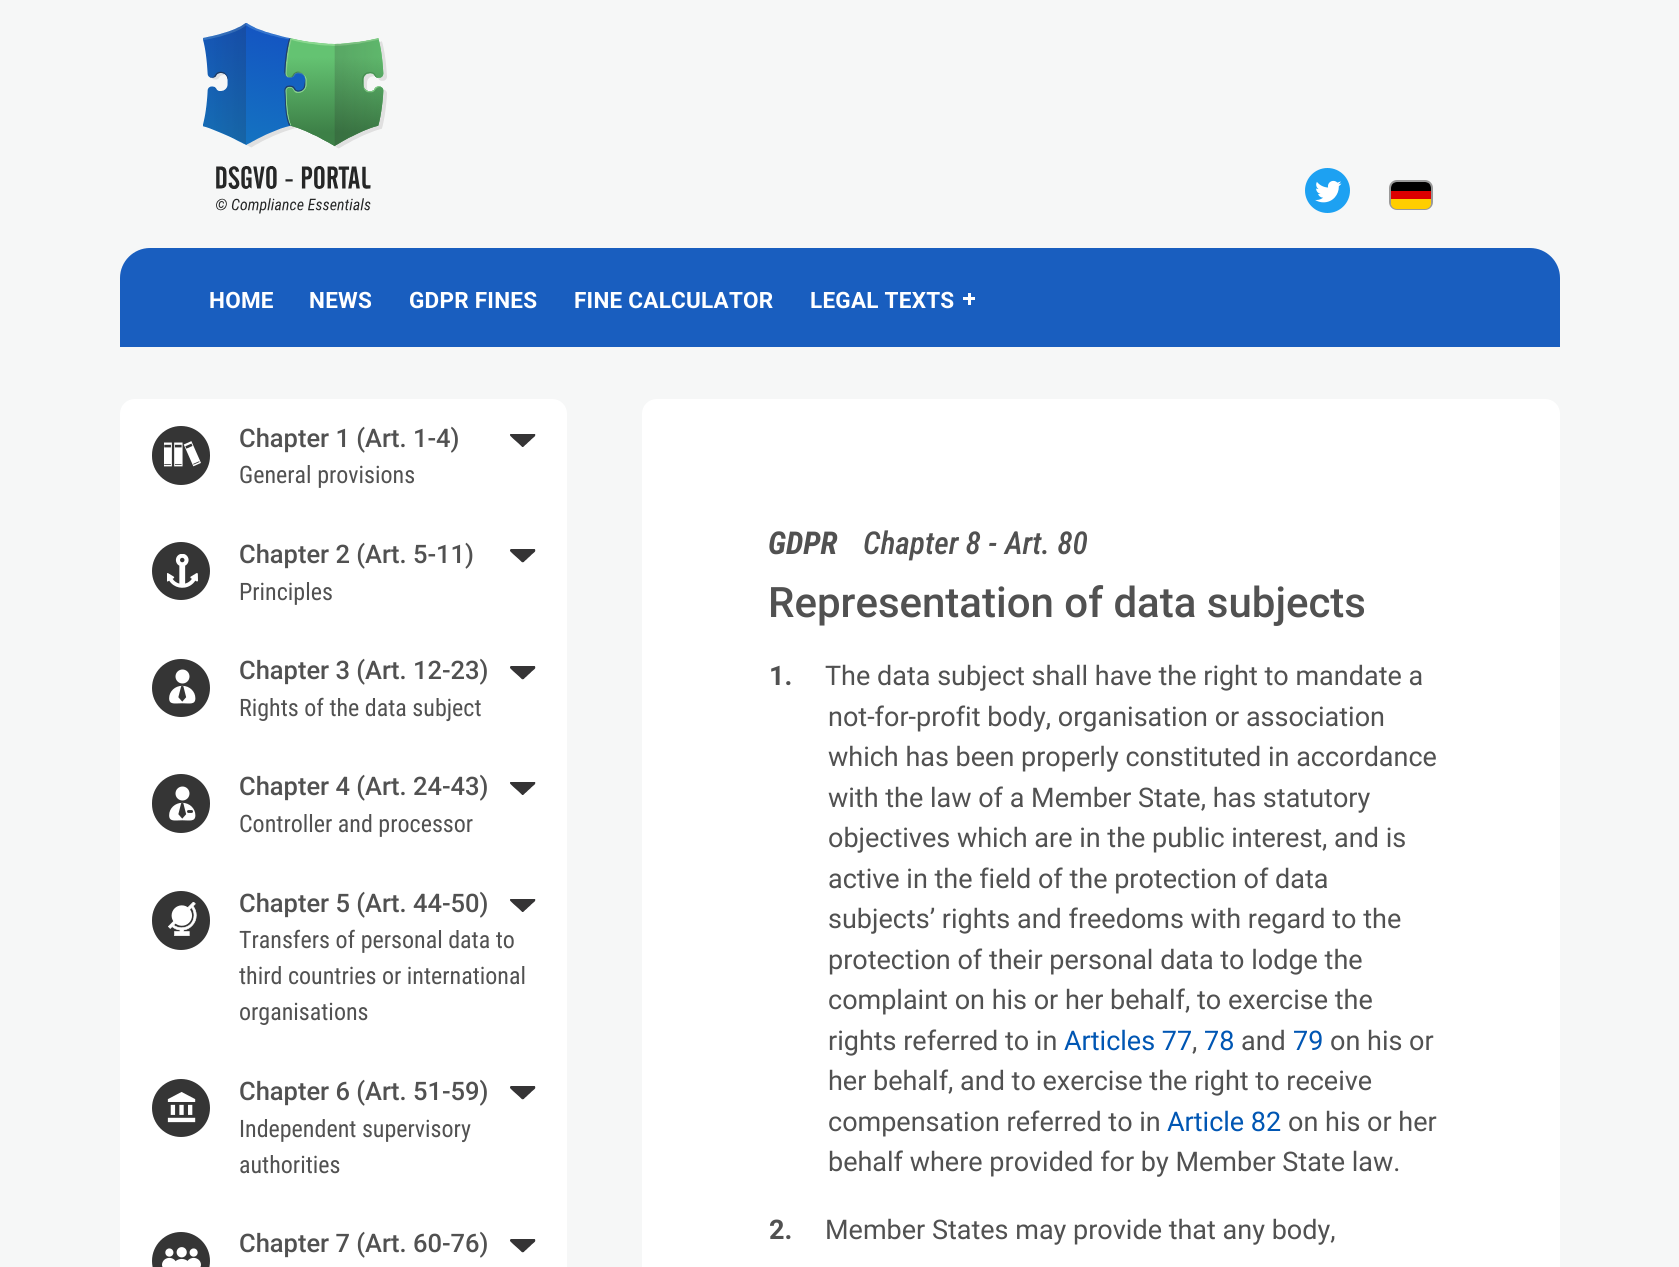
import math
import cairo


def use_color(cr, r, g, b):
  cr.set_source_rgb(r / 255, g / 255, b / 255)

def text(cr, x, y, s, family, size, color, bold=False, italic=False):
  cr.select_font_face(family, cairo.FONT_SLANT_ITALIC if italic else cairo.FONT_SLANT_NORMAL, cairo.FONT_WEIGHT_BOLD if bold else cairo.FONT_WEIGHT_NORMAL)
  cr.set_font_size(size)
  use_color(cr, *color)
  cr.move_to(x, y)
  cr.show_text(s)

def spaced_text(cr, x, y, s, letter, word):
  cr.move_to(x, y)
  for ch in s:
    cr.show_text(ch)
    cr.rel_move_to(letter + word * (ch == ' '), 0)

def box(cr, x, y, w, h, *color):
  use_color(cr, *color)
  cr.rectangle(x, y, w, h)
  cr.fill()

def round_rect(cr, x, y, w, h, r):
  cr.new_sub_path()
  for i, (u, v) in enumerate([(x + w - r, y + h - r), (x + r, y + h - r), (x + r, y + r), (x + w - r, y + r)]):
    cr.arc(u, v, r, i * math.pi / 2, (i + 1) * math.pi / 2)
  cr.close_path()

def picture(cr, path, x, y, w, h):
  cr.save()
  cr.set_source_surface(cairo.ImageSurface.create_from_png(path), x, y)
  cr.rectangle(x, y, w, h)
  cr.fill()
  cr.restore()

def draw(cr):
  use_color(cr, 246, 247, 247)
  cr.paint()
  picture(cr, "img_01.png", 203, 23, 184, 191)
  use_color(cr, 29, 161, 242)
  cr.arc(1327.5, 190.5, 22.5, 0, 2 * math.pi)
  cr.fill()
  picture(cr, "img_02.png", 1315, 180, 27, 23)
  round_rect(cr, 1390, 181, 42, 28, 7)
  use_color(cr, 153, 153, 153)
  cr.stroke()
  use_color(cr, 0, 0, 0)
  cr.new_path()
  cr.move_to(1397, 182)
  cr.line_to(1425, 182)
  cr.curve_to(1428.5, 182, 1431, 184.5, 1431, 188)
  cr.line_to(1431, 191)
  cr.line_to(1391, 191)
  cr.line_to(1391, 188)
  cr.curve_to(1391, 184.5, 1393.5, 182, 1397, 182)
  cr.close_path()
  cr.fill()
  box(cr, 1391, 191, 40, 8, 221, 0, 0)
  use_color(cr, 255, 206, 0)
  cr.new_path()
  cr.move_to(1391, 199)
  cr.line_to(1431, 199)
  cr.line_to(1431, 203)
  cr.curve_to(1431, 206.5, 1428.5, 209, 1425, 209)
  cr.line_to(1397, 209)
  cr.curve_to(1393.5, 209, 1391, 206.5, 1391, 203)
  cr.close_path()
  cr.fill()
  use_color(cr, 25, 94, 191)
  cr.new_path()
  cr.move_to(150, 248)
  cr.line_to(1530, 248)
  cr.curve_to(1546.5, 248, 1560, 261.5, 1560, 278)
  cr.line_to(1560, 347)
  cr.line_to(120, 347)
  cr.line_to(120, 278)
  cr.curve_to(120, 261.5, 133.5, 248, 150, 248)
  cr.close_path()
  cr.fill()
  box(cr, 968, 293, 3, 12, 255, 255, 255)
  box(cr, 963, 297, 12, 3, 255, 255, 255)
  box(cr, 120, 512, 447, 3, 255, 255, 255)
  cr.new_path()
  cr.move_to(135, 399)
  cr.line_to(552, 399)
  cr.curve_to(560.5, 399, 567, 405.5, 567, 414)
  cr.line_to(567, 512)
  cr.line_to(120, 512)
  cr.line_to(120, 414)
  cr.curve_to(120, 405.5, 126.5, 399, 135, 399)
  cr.close_path()
  cr.fill()
  use_color(cr, 53, 53, 53)
  round_rect(cr, 152, 426, 58, 59, 29)
  cr.fill()
  picture(cr, "img_03.png", 164, 441, 37, 26)
  picture(cr, "img_04.png", 510, 434, 26, 13)
  box(cr, 120, 515, 447, 117, 255, 255, 255)
  use_color(cr, 53, 53, 53)
  cr.arc(181, 571, 29, 0, 2 * math.pi)
  cr.fill()
  picture(cr, "img_05.png", 167, 554, 31, 34)
  picture(cr, "img_06.png", 510, 549, 26, 14)
  box(cr, 120, 632, 447, 115, 255, 255, 255)
  use_color(cr, 53, 53, 53)
  cr.arc(181, 688, 29, 0, 2 * math.pi)
  cr.fill()
  picture(cr, "img_07.png", 169, 669, 27, 35)
  picture(cr, "img_06.png", 510, 666, 26, 14)
  box(cr, 120, 747, 447, 117, 255, 255, 255)
  use_color(cr, 53, 53, 53)
  round_rect(cr, 152, 774, 58, 59, 29)
  cr.fill()
  picture(cr, "img_08.png", 169, 786, 27, 35)
  picture(cr, "img_04.png", 510, 782, 26, 13)
  box(cr, 120, 864, 447, 188, 255, 255, 255)
  use_color(cr, 53, 53, 53)
  round_rect(cr, 152, 891, 58, 59, 29)
  cr.fill()
  picture(cr, "img_09.png", 168, 902, 29, 34)
  picture(cr, "img_04.png", 510, 899, 26, 13)
  box(cr, 120, 1052, 447, 215, 255, 255, 255)
  use_color(cr, 53, 53, 53)
  cr.arc(181, 1108, 29, 0, 2 * math.pi)
  cr.fill()
  picture(cr, "img_10.png", 167, 1092, 29, 31)
  picture(cr, "img_06.png", 510, 1086, 26, 14)
  cr.arc(181, 1261, 29, 0, 2 * math.pi)
  cr.fill()
  picture(cr, "img_11.png", 162, 1247, 39, 20)
  picture(cr, "img_06.png", 510, 1239, 26, 14)
  use_color(cr, 255, 255, 255)
  cr.new_path()
  cr.move_to(657, 399)
  cr.line_to(1545, 399)
  cr.curve_to(1553.5, 399, 1560, 405.5, 1560, 414)
  cr.line_to(1560, 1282)
  cr.line_to(642, 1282)
  cr.line_to(642, 414)
  cr.curve_to(642, 405.5, 648.5, 399, 657, 399)
  cr.close_path()
  cr.fill()
  cr.select_font_face("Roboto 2", cairo.FONT_SLANT_NORMAL, cairo.FONT_WEIGHT_BOLD)
  cr.set_font_size(22.5)
  spaced_text(cr, 209, 308, "HOME", 0.25, 0)
  spaced_text(cr, 309, 308, "NEWS", 0.25, 0)
  spaced_text(cr, 409, 308, "GDPR FINES", 0.25, 0)
  spaced_text(cr, 574, 308, "FINE CALCULATOR", 0.25, 0)
  spaced_text(cr, 810, 308, "LEGAL TEXTS", 0.25, 0)
  text(cr, 239, 447, "Chapter 1 (Art. 1-4)", "Roboto Medium", 25.5, (81, 81, 81))
  text(cr, 239, 483, "General provisions", "Roboto Condensed", 24, (81, 81, 81))
  text(cr, 239, 563, "Chapter 2 (Art. 5-11)", "Roboto Medium", 25.5, (81, 81, 81))
  text(cr, 239, 600, "Principles", "Roboto Condensed", 24, (81, 81, 81))
  text(cr, 239, 679, "Chapter 3 (Art. 12-23)", "Roboto Medium", 25.5, (81, 81, 81))
  text(cr, 239, 716, "Rights of the data subject", "Roboto Condensed", 24, (81, 81, 81))
  text(cr, 239, 795, "Chapter 4 (Art. 24-43)", "Roboto Medium", 25.5, (81, 81, 81))
  text(cr, 239, 832, "Controller and processor", "Roboto Condensed", 24, (81, 81, 81))
  text(cr, 239, 912, "Chapter 5 (Art. 44-50)", "Roboto Medium", 25.5, (81, 81, 81))
  text(cr, 239, 948, "Transfers of personal data to", "Roboto Condensed", 24, (81, 81, 81))
  text(cr, 239, 984, "third countries or international", "Roboto Condensed", 24, (81, 81, 81))
  text(cr, 239, 1020, "organisations", "Roboto Condensed", 24, (81, 81, 81))
  text(cr, 239, 1100, "Chapter 6 (Art. 51-59)", "Roboto Medium", 25.5, (81, 81, 81))
  text(cr, 239, 1137, "Independent supervisory", "Roboto Condensed", 24, (81, 81, 81))
  text(cr, 239, 1173, "authorities", "Roboto Condensed", 24, (81, 81, 81))
  text(cr, 239, 1252, "Chapter 7 (Art. 60-76)", "Roboto Medium", 25.5, (81, 81, 81))
  text(cr, 768, 554, "GDPR", "Roboto Condensed", 31.5, (81, 81, 81), bold=True, italic=True)
  text(cr, 863, 554, "Chapter 8 - Art. 80", "Roboto Condensed Medium", 31.5, (81, 81, 81), italic=True)
  text(cr, 768, 617, "Representation of data subjects", "Roboto Medium", 42, (81, 81, 81))
  text(cr, 769, 685, "1.", "Roboto", 27, (81, 81, 81), bold=True)
  text(cr, 825, 685, "The data subject shall have the right to mandate a", "Roboto", 27, (81, 81, 81))
  text(cr, 828, 726, "not-for-profit body, organisation or association", "Roboto", 27, (81, 81, 81))
  text(cr, 828, 766, "which has been properly constituted in accordance", "Roboto", 27, (81, 81, 81))
  text(cr, 828, 807, "with the law of a Member State, has statutory", "Roboto", 27, (81, 81, 81))
  text(cr, 828, 847, "objectives which are in the public interest, and is", "Roboto", 27, (81, 81, 81))
  text(cr, 828, 888, "active in the field of the protection of data", "Roboto", 27, (81, 81, 81))
  text(cr, 828, 928, "subjects’ rights and freedoms with regard to the", "Roboto", 27, (81, 81, 81))
  text(cr, 828, 969, "protection of their personal data to lodge the", "Roboto", 27, (81, 81, 81))
  text(cr, 828, 1009, "complaint on his or her behalf, to exercise the", "Roboto", 27, (81, 81, 81))
  text(cr, 828, 1050, "rights referred to in", "Roboto", 27, (81, 81, 81))
  text(cr, 1064, 1050, "Articles 77", "Roboto", 27, (0, 86, 179))
  text(cr, 1192, 1050, ",", "Roboto", 27, (81, 81, 81))
  text(cr, 1204, 1050, "78", "Roboto", 27, (0, 86, 179))
  text(cr, 1241, 1050, "and", "Roboto", 27, (81, 81, 81))
  text(cr, 1293, 1050, "79", "Roboto", 27, (0, 86, 179))
  text(cr, 1330, 1050, "on his or", "Roboto", 27, (81, 81, 81))
  text(cr, 828, 1090, "her behalf, and to exercise the right to receive", "Roboto", 27, (81, 81, 81))
  text(cr, 828, 1131, "compensation referred to in", "Roboto", 27, (81, 81, 81))
  text(cr, 1167, 1131, "Article 82", "Roboto", 27, (0, 86, 179))
  text(cr, 1288, 1131, "on his or her", "Roboto", 27, (81, 81, 81))
  text(cr, 828, 1171, "behalf where provided for by Member State law.", "Roboto", 27, (81, 81, 81))
  text(cr, 769, 1239, "2.", "Roboto", 27, (81, 81, 81), bold=True)
  text(cr, 825, 1239, "Member States may provide that any body,", "Roboto", 27, (81, 81, 81))


surface = cairo.ImageSurface(cairo.FORMAT_RGB24, 1679, 1267)
cr = cairo.Context(surface)
options = cairo.FontOptions()
options.set_hint_metrics(cairo.HINT_METRICS_OFF)
options.set_hint_style(cairo.HINT_STYLE_NONE)
cr.set_font_options(options)
cr.set_miter_limit(4)
draw(cr)
surface.write_to_png("out.png")
